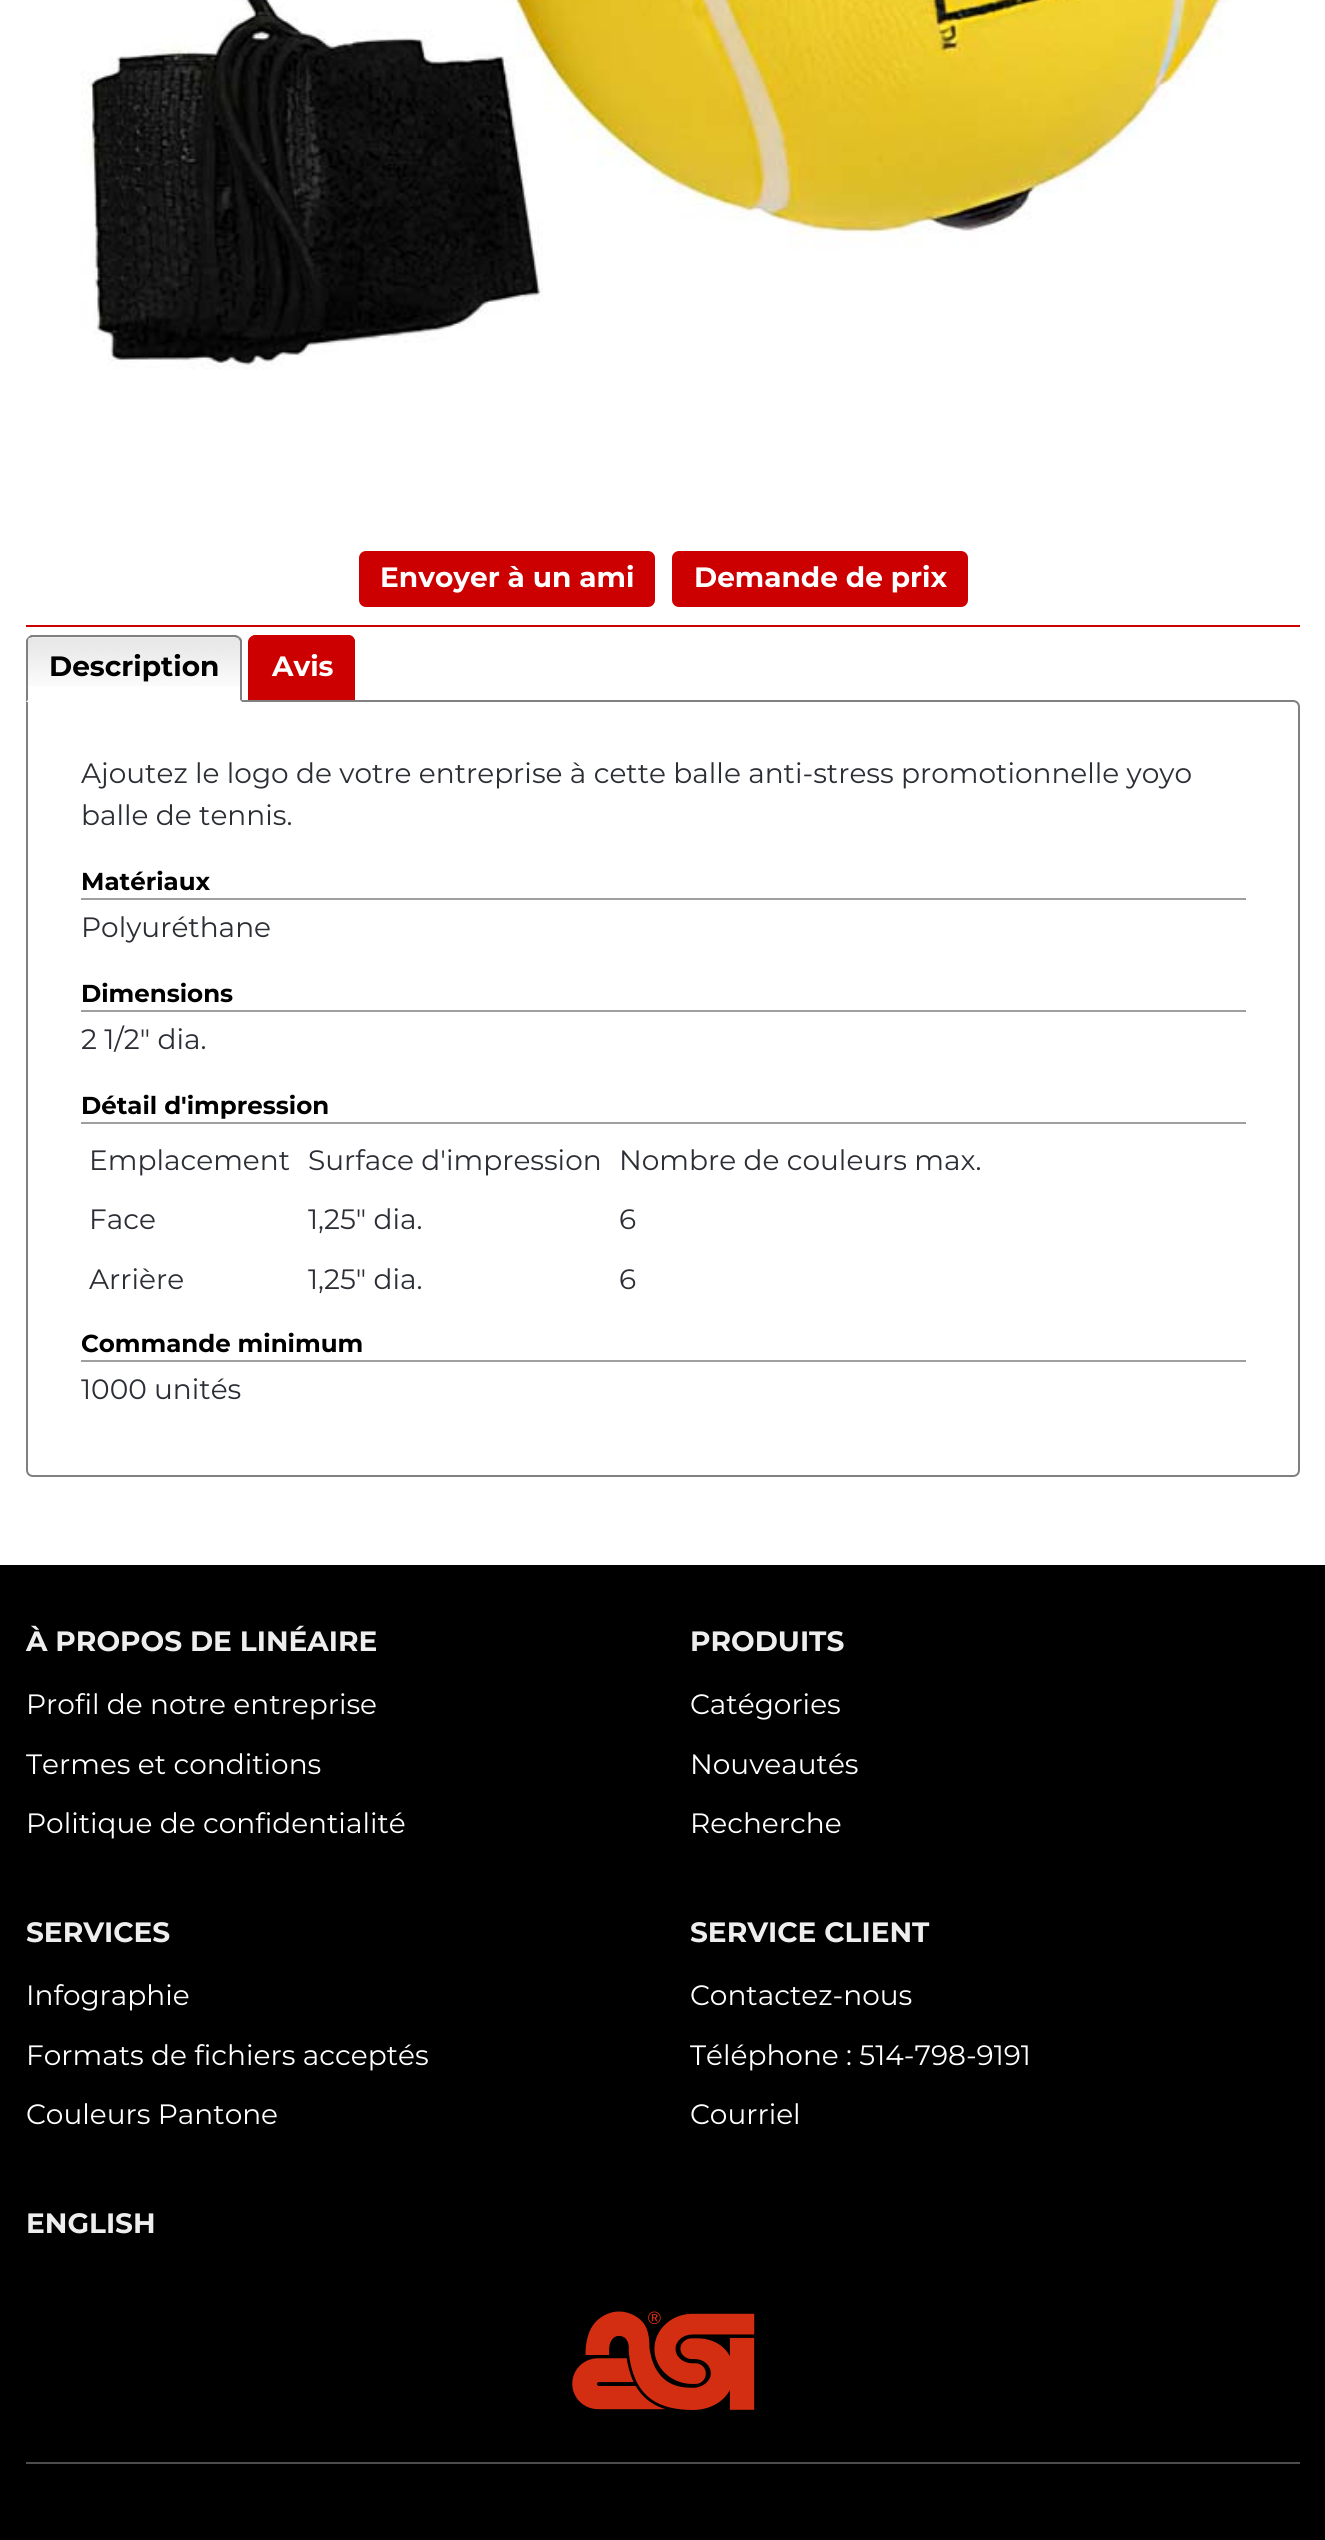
import math
import cairo


def use_color(cr, r, g, b):
  cr.set_source_rgb(r / 255, g / 255, b / 255)

def text(cr, x, y, s, family, size, color, bold=False, italic=False):
  cr.select_font_face(family, cairo.FONT_SLANT_ITALIC if italic else cairo.FONT_SLANT_NORMAL, cairo.FONT_WEIGHT_BOLD if bold else cairo.FONT_WEIGHT_NORMAL)
  cr.set_font_size(size)
  use_color(cr, *color)
  cr.move_to(x, y)
  cr.show_text(s)

def box(cr, x, y, w, h, *color):
  use_color(cr, *color)
  cr.rectangle(x, y, w, h)
  cr.fill()

def round_rect(cr, x, y, w, h, r):
  cr.new_sub_path()
  for i, (u, v) in enumerate([(x + w - r, y + h - r), (x + r, y + h - r), (x + r, y + r), (x + w - r, y + r)]):
    cr.arc(u, v, r, i * math.pi / 2, (i + 1) * math.pi / 2)
  cr.close_path()

def picture(cr, path, x, y, w, h):
  cr.save()
  cr.set_source_surface(cairo.ImageSurface.create_from_png(path), x, y)
  cr.rectangle(x, y, w, h)
  cr.fill()
  cr.restore()

def draw(cr):
  use_color(cr, 255, 255, 255)
  cr.paint()
  picture(cr, "img_01.png", 81, 0, 1152, 370)
  use_color(cr, 204, 0, 0)
  round_rect(cr, 359, 551, 296, 56, 7)
  cr.fill()
  round_rect(cr, 672, 551, 296, 56, 7)
  cr.fill()
  box(cr, 26, 625, 1274, 2, 204, 0, 0)
  cr.new_path()
  cr.move_to(27, 701)
  cr.line_to(1293, 701)
  cr.curve_to(1296.5, 701, 1299, 703.5, 1299, 707)
  cr.line_to(1299, 1470)
  cr.curve_to(1299, 1473.5, 1296.5, 1476, 1293, 1476)
  cr.line_to(33, 1476)
  cr.curve_to(29.5, 1476, 27, 1473.5, 27, 1470)
  cr.close_path()
  use_color(cr, 128, 128, 128)
  cr.stroke()
  use_color(cr, 255, 255, 255)
  cr.new_path()
  cr.move_to(33, 635)
  cr.line_to(235, 635)
  cr.curve_to(239, 635, 242, 638, 242, 642)
  cr.line_to(242, 702)
  cr.line_to(26, 702)
  cr.line_to(26, 642)
  cr.curve_to(26, 638, 29, 635, 33, 635)
  cr.close_path()
  cr.fill()
  picture(cr, "img_02.png", 26, 637, 215, 49)
  use_color(cr, 128, 128, 128)
  cr.new_path()
  cr.move_to(33, 637)
  cr.curve_to(32, 637, 30, 638, 29, 638)
  cr.line_to(28, 637)
  cr.line_to(31, 635)
  cr.line_to(236, 635)
  cr.line_to(240, 637)
  cr.line_to(238, 638)
  cr.curve_to(237, 638, 236, 637, 234, 637)
  cr.close_path()
  cr.fill()
  cr.new_path()
  cr.move_to(240, 637)
  cr.line_to(242, 640)
  cr.line_to(242, 702)
  cr.line_to(240, 700)
  cr.line_to(240, 641)
  cr.line_to(238, 638)
  cr.close_path()
  cr.fill()
  use_color(cr, 255, 255, 255)
  cr.new_path()
  cr.move_to(242, 702)
  cr.line_to(240, 700)
  cr.line_to(28, 700)
  cr.line_to(26, 702)
  cr.close_path()
  cr.fill()
  use_color(cr, 128, 128, 128)
  cr.new_path()
  cr.move_to(26, 702)
  cr.line_to(26, 640)
  cr.line_to(28, 637)
  cr.line_to(29, 638)
  cr.curve_to(28, 639, 28, 640, 28, 642)
  cr.line_to(28, 700)
  cr.close_path()
  cr.fill()
  use_color(cr, 204, 0, 0)
  cr.new_path()
  cr.move_to(256, 635)
  cr.line_to(348, 635)
  cr.curve_to(352, 635, 355, 638, 355, 642)
  cr.line_to(355, 700)
  cr.line_to(249, 700)
  cr.line_to(249, 642)
  cr.curve_to(249, 638, 252, 635, 256, 635)
  cr.close_path()
  cr.fill()
  cr.set_fill_rule(cairo.FILL_RULE_EVEN_ODD)
  cr.new_path()
  cr.move_to(256, 635)
  cr.line_to(348, 635)
  cr.curve_to(352, 635, 355, 638, 355, 642)
  cr.line_to(355, 700)
  cr.line_to(248, 700)
  cr.line_to(248, 642)
  cr.curve_to(248, 638, 252, 635, 256, 635)
  cr.close_path()
  cr.move_to(256, 637)
  cr.line_to(348, 637)
  cr.curve_to(351, 637, 354, 639, 354, 642)
  cr.line_to(354, 700)
  cr.line_to(250, 700)
  cr.line_to(250, 642)
  cr.curve_to(250, 639, 253, 637, 256, 637)
  cr.close_path()
  cr.fill()
  box(cr, 81, 898, 1165, 2, 159, 159, 159)
  box(cr, 81, 1010, 1165, 2, 159, 159, 159)
  box(cr, 81, 1122, 1165, 2, 159, 159, 159)
  box(cr, 81, 1360, 1165, 2, 159, 159, 159)
  box(cr, 0, 1565, 1325, 975, 0, 0, 0)
  picture(cr, "img_03.png", 572, 2311, 183, 99)
  box(cr, 26, 2462, 1274, 2, 77, 77, 77)
  text(cr, 380, 587, "Envoyer à un ami", "Montserrat", 28, (255, 255, 255), bold=True)
  text(cr, 694, 587, "Demande de prix", "Montserrat", 28, (255, 255, 255), bold=True)
  text(cr, 49, 676, "Description", "Montserrat", 28, (0, 0, 0), bold=True)
  text(cr, 272, 676, "Avis", "Montserrat", 28, (255, 255, 255), bold=True)
  text(cr, 81, 783, "Ajoutez le logo de votre entreprise à cette balle anti-stress promotionnelle yoyo", "Montserrat", 28, (44, 46, 53))
  text(cr, 81, 825, "balle de tennis.", "Montserrat", 28, (44, 46, 53))
  text(cr, 81, 890, "Matériaux", "Montserrat", 24.5, (0, 0, 0), bold=True)
  text(cr, 81, 937, "Polyuréthane", "Montserrat", 28, (44, 46, 53))
  text(cr, 81, 1002, "Dimensions", "Montserrat", 24.5, (0, 0, 0), bold=True)
  text(cr, 81, 1049, "2 1/2\" dia.", "Montserrat", 28, (44, 46, 53))
  text(cr, 81, 1114, "Détail d'impression", "Montserrat", 24.5, (0, 0, 0), bold=True)
  text(cr, 89, 1170, "Emplacement", "Montserrat", 28, (44, 46, 53))
  text(cr, 308, 1170, "Surface d'impression", "Montserrat", 28, (44, 46, 53))
  text(cr, 619, 1170, "Nombre de couleurs max.", "Montserrat", 28, (44, 46, 53))
  text(cr, 89, 1229, "Face", "Montserrat", 28, (44, 46, 53))
  text(cr, 308, 1229, "1,25\" dia.", "Montserrat", 28, (44, 46, 53))
  text(cr, 619, 1229, "6", "Montserrat", 28, (44, 46, 53))
  text(cr, 89, 1289, "Arrière", "Montserrat", 28, (44, 46, 53))
  text(cr, 308, 1289, "1,25\" dia.", "Montserrat", 28, (44, 46, 53))
  text(cr, 619, 1289, "6", "Montserrat", 28, (44, 46, 53))
  text(cr, 81, 1352, "Commande minimum", "Montserrat", 24.5, (0, 0, 0), bold=True)
  text(cr, 81, 1399, "1000 unités", "Montserrat", 28, (44, 46, 53))
  text(cr, 26, 1651, "À PROPOS DE LINÉAIRE", "Montserrat", 28, (238, 238, 238), bold=True)
  text(cr, 26, 1714, "Profil de notre entreprise", "Montserrat", 28, (255, 255, 255))
  text(cr, 26, 1774, "Termes et conditions", "Montserrat", 28, (255, 255, 255))
  text(cr, 26, 1833, "Politique de confidentialité", "Montserrat", 28, (255, 255, 255))
  text(cr, 690, 1651, "PRODUITS", "Montserrat", 28, (238, 238, 238), bold=True)
  text(cr, 690, 1714, "Catégories", "Montserrat", 28, (255, 255, 255))
  text(cr, 690, 1774, "Nouveautés", "Montserrat", 28, (255, 255, 255))
  text(cr, 690, 1833, "Recherche", "Montserrat", 28, (255, 255, 255))
  text(cr, 26, 1942, "SERVICES", "Montserrat", 28, (238, 238, 238), bold=True)
  text(cr, 26, 2005, "Infographie", "Montserrat", 28, (255, 255, 255))
  text(cr, 26, 2065, "Formats de fichiers acceptés", "Montserrat", 28, (255, 255, 255))
  text(cr, 26, 2124, "Couleurs Pantone", "Montserrat", 28, (255, 255, 255))
  text(cr, 690, 1942, "SERVICE CLIENT", "Montserrat", 28, (238, 238, 238), bold=True)
  text(cr, 690, 2005, "Contactez-nous", "Montserrat", 28, (255, 255, 255))
  text(cr, 690, 2065, "Téléphone : 514-798-9191", "Montserrat", 28, (255, 255, 255))
  text(cr, 690, 2124, "Courriel", "Montserrat", 28, (255, 255, 255))
  text(cr, 26, 2233, "ENGLISH", "Montserrat", 28, (238, 238, 238), bold=True)


surface = cairo.ImageSurface(cairo.FORMAT_RGB24, 1325, 2540)
cr = cairo.Context(surface)
options = cairo.FontOptions()
options.set_hint_metrics(cairo.HINT_METRICS_OFF)
options.set_hint_style(cairo.HINT_STYLE_NONE)
cr.set_font_options(options)
cr.set_miter_limit(4)
draw(cr)
surface.write_to_png("out.png")
